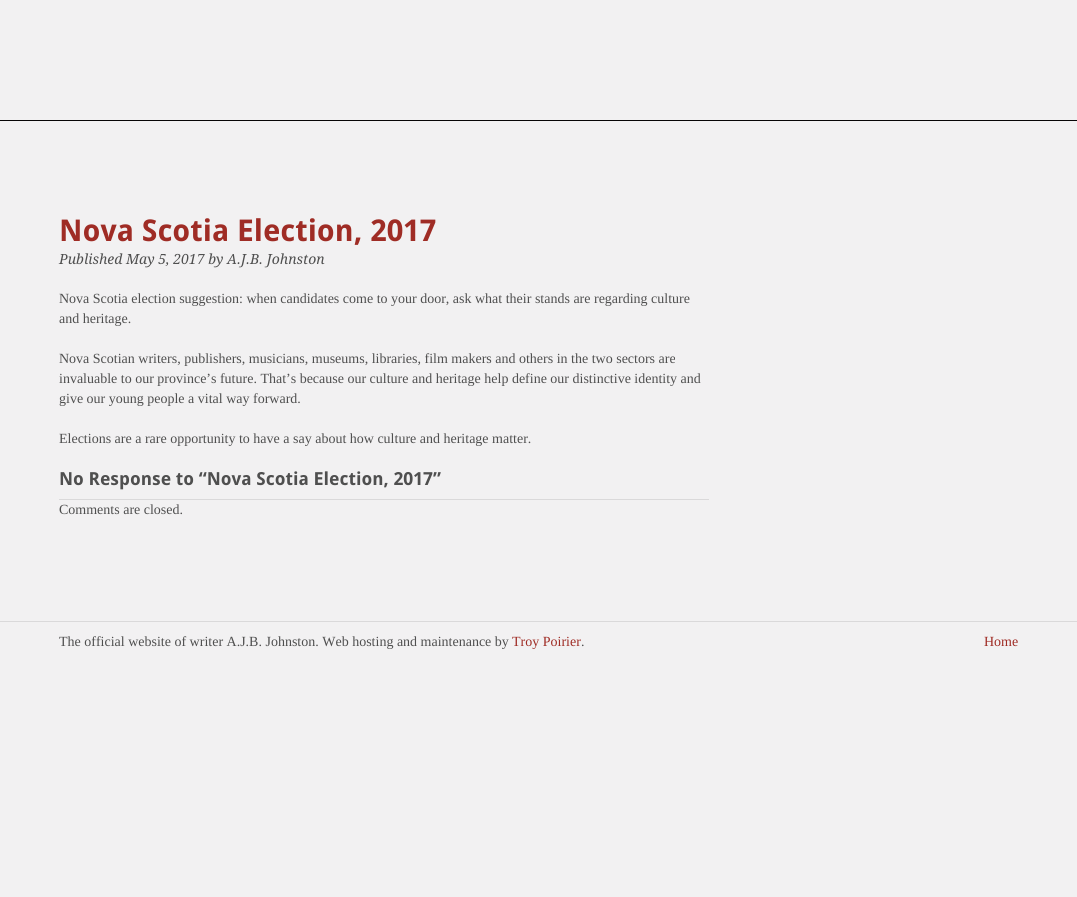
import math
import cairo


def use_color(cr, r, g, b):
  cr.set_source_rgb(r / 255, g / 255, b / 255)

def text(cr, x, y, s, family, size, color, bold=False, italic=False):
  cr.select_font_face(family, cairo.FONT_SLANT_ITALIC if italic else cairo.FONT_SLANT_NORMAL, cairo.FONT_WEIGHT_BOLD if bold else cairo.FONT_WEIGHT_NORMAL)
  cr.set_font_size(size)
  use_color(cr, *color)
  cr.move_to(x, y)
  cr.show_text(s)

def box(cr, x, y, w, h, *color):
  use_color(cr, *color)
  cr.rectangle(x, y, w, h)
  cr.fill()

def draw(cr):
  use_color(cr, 242, 241, 242)
  cr.paint()
  box(cr, 0, 120, 1077, 1, 7, 5, 6)
  box(cr, 59, 499, 650, 1, 218, 217, 218)
  box(cr, 0, 621, 1077, 1, 218, 217, 218)
  text(cr, 59, 241, "Nova Scotia Election, 2017", "Droid Sans", 30, (159, 44, 37), bold=True)
  text(cr, 59, 264, "Published May 5, 2017 by A.J.B. Johnston", "Droid Serif", 14, (79, 79, 79), italic=True)
  text(cr, 59, 303, "Nova Scotia election suggestion: when candidates come to your door, ask what their stands are regarding culture", "Liberation Serif", 14, (79, 79, 79))
  text(cr, 59, 323, "and heritage.", "Liberation Serif", 14, (79, 79, 79))
  text(cr, 59, 363, "Nova Scotian writers, publishers, musicians, museums, libraries, film makers and others in the two sectors are", "Liberation Serif", 14, (79, 79, 79))
  text(cr, 59, 383, "invaluable to our province’s future. That’s because our culture and heritage help define our distinctive identity and", "Liberation Serif", 14, (79, 79, 79))
  text(cr, 59, 403, "give our young people a vital way forward.", "Liberation Serif", 14, (79, 79, 79))
  text(cr, 59, 443, "Elections are a rare opportunity to have a say about how culture and heritage matter.", "Liberation Serif", 14, (79, 79, 79))
  text(cr, 59, 485, "No Response to “Nova Scotia Election, 2017”", "Droid Sans", 18, (79, 79, 79), bold=True)
  text(cr, 59, 514, "Comments are closed.", "Liberation Serif", 14, (79, 79, 79))
  text(cr, 59, 646, "The official website of writer A.J.B. Johnston. Web hosting and maintenance by", "Liberation Serif", 14, (79, 79, 79))
  text(cr, 512, 646, "Troy Poirier", "Liberation Serif", 14, (159, 44, 37))
  text(cr, 581, 646, ".", "Liberation Serif", 14, (79, 79, 79))
  text(cr, 984, 646, "Home", "Liberation Serif", 14, (159, 44, 37))


surface = cairo.ImageSurface(cairo.FORMAT_RGB24, 1077, 897)
cr = cairo.Context(surface)
options = cairo.FontOptions()
options.set_hint_metrics(cairo.HINT_METRICS_OFF)
options.set_hint_style(cairo.HINT_STYLE_NONE)
cr.set_font_options(options)
cr.set_miter_limit(4)
draw(cr)
surface.write_to_png("out.png")
